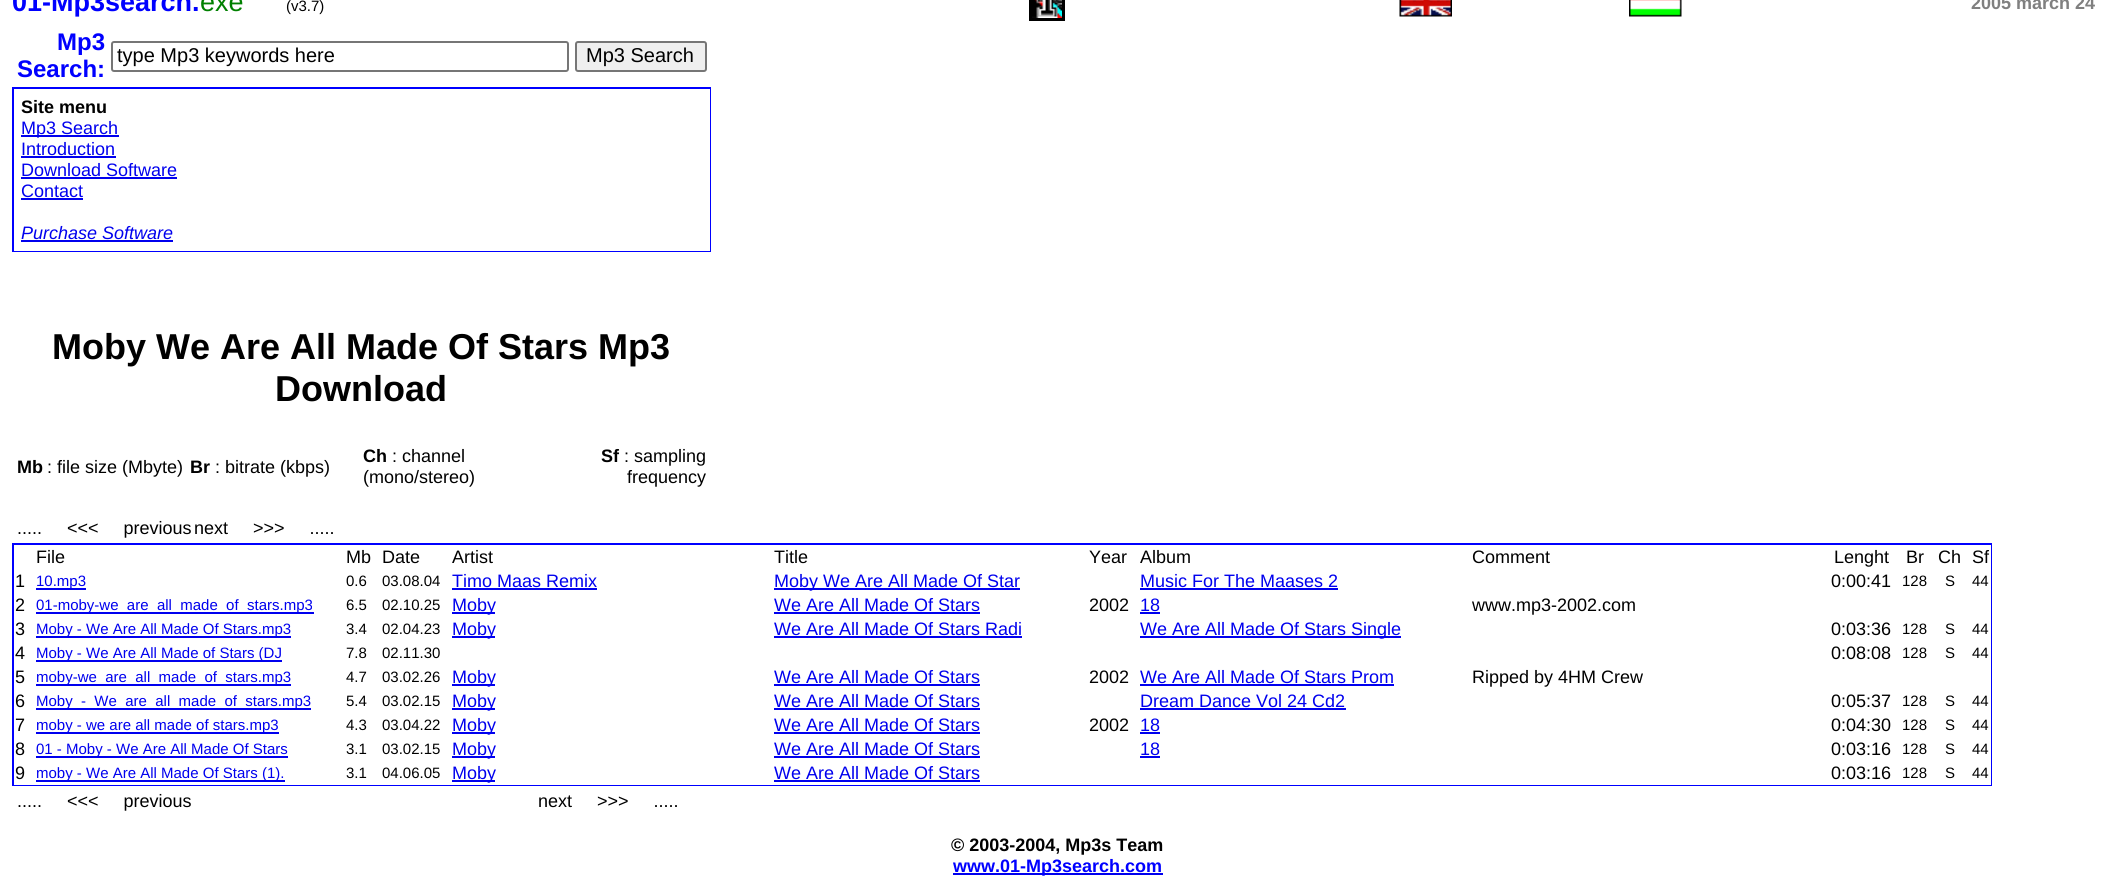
import math
import cairo


def use_color(cr, r, g, b):
  cr.set_source_rgb(r / 255, g / 255, b / 255)

def text(cr, x, y, s, family, size, color, bold=False, italic=False):
  cr.select_font_face(family, cairo.FONT_SLANT_ITALIC if italic else cairo.FONT_SLANT_NORMAL, cairo.FONT_WEIGHT_BOLD if bold else cairo.FONT_WEIGHT_NORMAL)
  cr.set_font_size(size)
  use_color(cr, *color)
  cr.move_to(x, y)
  cr.show_text(s)

def box(cr, x, y, w, h, *color):
  use_color(cr, *color)
  cr.rectangle(x, y, w, h)
  cr.fill()

def round_rect(cr, x, y, w, h, r):
  cr.new_sub_path()
  for i, (u, v) in enumerate([(x + w - r, y + h - r), (x + r, y + h - r), (x + r, y + r), (x + w - r, y + r)]):
    cr.arc(u, v, r, i * math.pi / 2, (i + 1) * math.pi / 2)
  cr.close_path()

def picture(cr, path, x, y, w, h):
  cr.save()
  cr.set_source_surface(cairo.ImageSurface.create_from_png(path), x, y)
  cr.rectangle(x, y, w, h)
  cr.fill()
  cr.restore()

def draw(cr):
  use_color(cr, 255, 255, 255)
  cr.paint()
  cr.rectangle(1030.5, -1.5, 33, 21)
  use_color(cr, 0, 0, 0)
  cr.set_line_width(3)
  cr.stroke()
  picture(cr, "img_01.png", 1032, 0, 30, 18)
  picture(cr, "img_02.png", 1399, 0, 53, 17)
  picture(cr, "img_03.png", 1629, 0, 53, 17)
  round_rect(cr, 112, 42, 456, 29, 2)
  use_color(cr, 118, 118, 118)
  cr.set_line_width(2)
  cr.stroke()
  use_color(cr, 239, 239, 239)
  round_rect(cr, 576, 42, 130, 29, 2)
  cr.fill_preserve()
  use_color(cr, 118, 118, 118)
  cr.stroke()
  box(cr, 12, 87, 699, 165, 0, 0, 255)
  box(cr, 14, 89, 696, 162, 255, 255, 255)
  box(cr, 21, 135, 98, 2, 0, 0, 238)
  box(cr, 21, 156, 95, 2, 0, 0, 238)
  box(cr, 21, 177, 156, 2, 0, 0, 238)
  box(cr, 21, 198, 62, 2, 0, 0, 238)
  box(cr, 21, 240, 152, 2, 0, 0, 238)
  box(cr, 12, 543, 1980, 243, 0, 0, 255)
  box(cr, 14, 545, 1977, 240, 255, 255, 255)
  box(cr, 36, 588, 50, 2, 0, 0, 238)
  box(cr, 452, 588, 145, 2, 0, 0, 238)
  box(cr, 774, 588, 246, 2, 0, 0, 238)
  box(cr, 1140, 588, 198, 2, 0, 0, 238)
  box(cr, 36, 612, 278, 2, 0, 0, 238)
  box(cr, 452, 612, 43, 2, 0, 0, 238)
  box(cr, 774, 612, 206, 2, 0, 0, 238)
  box(cr, 1140, 612, 20, 2, 0, 0, 238)
  box(cr, 36, 636, 255, 2, 0, 0, 238)
  box(cr, 452, 636, 43, 2, 0, 0, 238)
  box(cr, 774, 636, 248, 2, 0, 0, 238)
  box(cr, 1140, 636, 261, 2, 0, 0, 238)
  box(cr, 36, 660, 246, 2, 0, 0, 238)
  box(cr, 36, 684, 255, 2, 0, 0, 238)
  box(cr, 452, 684, 43, 2, 0, 0, 238)
  box(cr, 774, 684, 206, 2, 0, 0, 238)
  box(cr, 1140, 684, 254, 2, 0, 0, 238)
  box(cr, 36, 708, 275, 2, 0, 0, 238)
  box(cr, 452, 708, 43, 2, 0, 0, 238)
  box(cr, 774, 708, 206, 2, 0, 0, 238)
  box(cr, 1140, 708, 206, 2, 0, 0, 238)
  box(cr, 36, 732, 243, 2, 0, 0, 238)
  box(cr, 452, 732, 43, 2, 0, 0, 238)
  box(cr, 774, 732, 206, 2, 0, 0, 238)
  box(cr, 1140, 732, 20, 2, 0, 0, 238)
  box(cr, 36, 756, 252, 2, 0, 0, 238)
  box(cr, 452, 756, 43, 2, 0, 0, 238)
  box(cr, 774, 756, 206, 2, 0, 0, 238)
  box(cr, 1140, 756, 20, 2, 0, 0, 238)
  box(cr, 36, 780, 249, 2, 0, 0, 238)
  box(cr, 452, 780, 43, 2, 0, 0, 238)
  box(cr, 774, 780, 206, 2, 0, 0, 238)
  box(cr, 953, 873, 210, 2, 0, 0, 238)
  text(cr, 12, 11, "01-Mp3search.", "Liberation Sans", 27, (0, 0, 255), bold=True)
  text(cr, 200, 11, "exe", "Liberation Sans", 27, (0, 128, 0))
  text(cr, 286, 11, "(v3.7)", "Liberation Sans", 15, (0, 0, 0))
  text(cr, 1971, 9, "2005 march 24", "Liberation Sans", 18, (128, 128, 128), bold=True)
  text(cr, 57, 50, "Mp3", "Liberation Sans", 24, (0, 0, 255), bold=True)
  text(cr, 17, 77, "Search:", "Liberation Sans", 24, (0, 0, 255), bold=True)
  text(cr, 117, 62, "type Mp3 keywords here", "Liberation Sans", 20, (0, 0, 0))
  text(cr, 586, 62, "Mp3 Search", "Liberation Sans", 20, (0, 0, 0))
  text(cr, 21, 113, "Site menu", "Liberation Sans", 18, (0, 0, 0), bold=True)
  text(cr, 21, 134, "Mp3 Search", "Liberation Sans", 18, (0, 0, 238))
  text(cr, 21, 155, "Introduction", "Liberation Sans", 18, (0, 0, 238))
  text(cr, 21, 176, "Download Software", "Liberation Sans", 18, (0, 0, 238))
  text(cr, 21, 197, "Contact", "Liberation Sans", 18, (0, 0, 238))
  text(cr, 21, 239, "Purchase Software", "Liberation Sans", 18, (0, 0, 238), italic=True)
  text(cr, 52, 359, "Moby We Are All Made Of Stars Mp3", "Liberation Sans", 36, (0, 0, 0), bold=True)
  text(cr, 275, 401, "Download", "Liberation Sans", 36, (0, 0, 0), bold=True)
  text(cr, 17, 473, "Mb", "Liberation Sans", 18, (0, 0, 0), bold=True)
  text(cr, 47, 473, ": file size (Mbyte)", "Liberation Sans", 18, (0, 0, 0))
  text(cr, 190, 473, "Br", "Liberation Sans", 18, (0, 0, 0), bold=True)
  text(cr, 215, 473, ": bitrate (kbps)", "Liberation Sans", 18, (0, 0, 0))
  text(cr, 363, 462, "Ch", "Liberation Sans", 18, (0, 0, 0), bold=True)
  text(cr, 392, 462, ": channel", "Liberation Sans", 18, (0, 0, 0))
  text(cr, 363, 483, "(mono/stereo)", "Liberation Sans", 18, (0, 0, 0))
  text(cr, 601, 462, "Sf", "Liberation Sans", 18, (0, 0, 0), bold=True)
  text(cr, 624, 462, ": sampling", "Liberation Sans", 18, (0, 0, 0))
  text(cr, 627, 483, "frequency", "Liberation Sans", 18, (0, 0, 0))
  text(cr, 17, 534, ".....     <<<     previous", "Liberation Sans", 18, (0, 0, 0))
  text(cr, 194, 534, "next     >>>     .....", "Liberation Sans", 18, (0, 0, 0))
  text(cr, 36, 563, "File", "Liberation Sans", 18, (0, 0, 0))
  text(cr, 346, 563, "Mb", "Liberation Sans", 18, (0, 0, 0))
  text(cr, 382, 563, "Date", "Liberation Sans", 18, (0, 0, 0))
  text(cr, 452, 563, "Artist", "Liberation Sans", 18, (0, 0, 0))
  text(cr, 774, 563, "Title", "Liberation Sans", 18, (0, 0, 0))
  text(cr, 1089, 563, "Year", "Liberation Sans", 18, (0, 0, 0))
  text(cr, 1140, 563, "Album", "Liberation Sans", 18, (0, 0, 0))
  text(cr, 1472, 563, "Comment", "Liberation Sans", 18, (0, 0, 0))
  text(cr, 1834, 563, "Lenght", "Liberation Sans", 18, (0, 0, 0))
  text(cr, 1906, 563, "Br", "Liberation Sans", 18, (0, 0, 0))
  text(cr, 1938, 563, "Ch", "Liberation Sans", 18, (0, 0, 0))
  text(cr, 1972, 563, "Sf", "Liberation Sans", 18, (0, 0, 0))
  text(cr, 15, 587, "1", "Liberation Sans", 18, (0, 0, 0))
  text(cr, 36, 586, "10.mp3", "Liberation Sans", 15, (0, 0, 238))
  text(cr, 346, 586, "0.6", "Liberation Sans", 15, (0, 0, 0))
  text(cr, 382, 586, "03.08.04", "Liberation Sans", 15, (0, 0, 0))
  text(cr, 452, 587, "Timo Maas Remix", "Liberation Sans", 18, (0, 0, 238))
  text(cr, 774, 587, "Moby We Are All Made Of Star", "Liberation Sans", 18, (0, 0, 238))
  text(cr, 1140, 587, "Music For The Maases 2", "Liberation Sans", 18, (0, 0, 238))
  text(cr, 1831, 587, "0:00:41", "Liberation Sans", 18, (0, 0, 0))
  text(cr, 1902, 586, "128", "Liberation Sans", 15, (0, 0, 0))
  text(cr, 1945, 586, "S", "Liberation Sans", 15, (0, 0, 0))
  text(cr, 1972, 586, "44", "Liberation Sans", 15, (0, 0, 0))
  text(cr, 15, 611, "2", "Liberation Sans", 18, (0, 0, 0))
  text(cr, 36, 610, "01-moby-we_are_all_made_of_stars.mp3", "Liberation Sans", 15, (0, 0, 238))
  text(cr, 346, 610, "6.5", "Liberation Sans", 15, (0, 0, 0))
  text(cr, 382, 610, "02.10.25", "Liberation Sans", 15, (0, 0, 0))
  text(cr, 452, 611, "Moby", "Liberation Sans", 18, (0, 0, 238))
  text(cr, 774, 611, "We Are All Made Of Stars", "Liberation Sans", 18, (0, 0, 238))
  text(cr, 1089, 611, "2002", "Liberation Sans", 18, (0, 0, 0))
  text(cr, 1140, 611, "18", "Liberation Sans", 18, (0, 0, 238))
  text(cr, 1472, 611, "www.mp3-2002.com", "Liberation Sans", 18, (0, 0, 0))
  text(cr, 15, 635, "3", "Liberation Sans", 18, (0, 0, 0))
  text(cr, 36, 634, "Moby - We Are All Made Of Stars.mp3", "Liberation Sans", 15, (0, 0, 238))
  text(cr, 346, 634, "3.4", "Liberation Sans", 15, (0, 0, 0))
  text(cr, 382, 634, "02.04.23", "Liberation Sans", 15, (0, 0, 0))
  text(cr, 452, 635, "Moby", "Liberation Sans", 18, (0, 0, 238))
  text(cr, 774, 635, "We Are All Made Of Stars Radi", "Liberation Sans", 18, (0, 0, 238))
  text(cr, 1140, 635, "We Are All Made Of Stars Single", "Liberation Sans", 18, (0, 0, 238))
  text(cr, 1831, 635, "0:03:36", "Liberation Sans", 18, (0, 0, 0))
  text(cr, 1902, 634, "128", "Liberation Sans", 15, (0, 0, 0))
  text(cr, 1945, 634, "S", "Liberation Sans", 15, (0, 0, 0))
  text(cr, 1972, 634, "44", "Liberation Sans", 15, (0, 0, 0))
  text(cr, 15, 659, "4", "Liberation Sans", 18, (0, 0, 0))
  text(cr, 36, 658, "Moby - We Are All Made of Stars (DJ", "Liberation Sans", 15, (0, 0, 238))
  text(cr, 346, 658, "7.8", "Liberation Sans", 15, (0, 0, 0))
  text(cr, 382, 658, "02.11.30", "Liberation Sans", 15, (0, 0, 0))
  text(cr, 1831, 659, "0:08:08", "Liberation Sans", 18, (0, 0, 0))
  text(cr, 1902, 658, "128", "Liberation Sans", 15, (0, 0, 0))
  text(cr, 1945, 658, "S", "Liberation Sans", 15, (0, 0, 0))
  text(cr, 1972, 658, "44", "Liberation Sans", 15, (0, 0, 0))
  text(cr, 15, 683, "5", "Liberation Sans", 18, (0, 0, 0))
  text(cr, 36, 682, "moby-we_are_all_made_of_stars.mp3", "Liberation Sans", 15, (0, 0, 238))
  text(cr, 346, 682, "4.7", "Liberation Sans", 15, (0, 0, 0))
  text(cr, 382, 682, "03.02.26", "Liberation Sans", 15, (0, 0, 0))
  text(cr, 452, 683, "Moby", "Liberation Sans", 18, (0, 0, 238))
  text(cr, 774, 683, "We Are All Made Of Stars", "Liberation Sans", 18, (0, 0, 238))
  text(cr, 1089, 683, "2002", "Liberation Sans", 18, (0, 0, 0))
  text(cr, 1140, 683, "We Are All Made Of Stars Prom", "Liberation Sans", 18, (0, 0, 238))
  text(cr, 1472, 683, "Ripped by 4HM Crew", "Liberation Sans", 18, (0, 0, 0))
  text(cr, 15, 707, "6", "Liberation Sans", 18, (0, 0, 0))
  text(cr, 36, 706, "Moby_-_We_are_all_made_of_stars.mp3", "Liberation Sans", 15, (0, 0, 238))
  text(cr, 346, 706, "5.4", "Liberation Sans", 15, (0, 0, 0))
  text(cr, 382, 706, "03.02.15", "Liberation Sans", 15, (0, 0, 0))
  text(cr, 452, 707, "Moby", "Liberation Sans", 18, (0, 0, 238))
  text(cr, 774, 707, "We Are All Made Of Stars", "Liberation Sans", 18, (0, 0, 238))
  text(cr, 1140, 707, "Dream Dance Vol 24 Cd2", "Liberation Sans", 18, (0, 0, 238))
  text(cr, 1831, 707, "0:05:37", "Liberation Sans", 18, (0, 0, 0))
  text(cr, 1902, 706, "128", "Liberation Sans", 15, (0, 0, 0))
  text(cr, 1945, 706, "S", "Liberation Sans", 15, (0, 0, 0))
  text(cr, 1972, 706, "44", "Liberation Sans", 15, (0, 0, 0))
  text(cr, 15, 731, "7", "Liberation Sans", 18, (0, 0, 0))
  text(cr, 36, 730, "moby - we are all made of stars.mp3", "Liberation Sans", 15, (0, 0, 238))
  text(cr, 346, 730, "4.3", "Liberation Sans", 15, (0, 0, 0))
  text(cr, 382, 730, "03.04.22", "Liberation Sans", 15, (0, 0, 0))
  text(cr, 452, 731, "Moby", "Liberation Sans", 18, (0, 0, 238))
  text(cr, 774, 731, "We Are All Made Of Stars", "Liberation Sans", 18, (0, 0, 238))
  text(cr, 1089, 731, "2002", "Liberation Sans", 18, (0, 0, 0))
  text(cr, 1140, 731, "18", "Liberation Sans", 18, (0, 0, 238))
  text(cr, 1831, 731, "0:04:30", "Liberation Sans", 18, (0, 0, 0))
  text(cr, 1902, 730, "128", "Liberation Sans", 15, (0, 0, 0))
  text(cr, 1945, 730, "S", "Liberation Sans", 15, (0, 0, 0))
  text(cr, 1972, 730, "44", "Liberation Sans", 15, (0, 0, 0))
  text(cr, 15, 755, "8", "Liberation Sans", 18, (0, 0, 0))
  text(cr, 36, 754, "01 - Moby - We Are All Made Of Stars", "Liberation Sans", 15, (0, 0, 238))
  text(cr, 346, 754, "3.1", "Liberation Sans", 15, (0, 0, 0))
  text(cr, 382, 754, "03.02.15", "Liberation Sans", 15, (0, 0, 0))
  text(cr, 452, 755, "Moby", "Liberation Sans", 18, (0, 0, 238))
  text(cr, 774, 755, "We Are All Made Of Stars", "Liberation Sans", 18, (0, 0, 238))
  text(cr, 1140, 755, "18", "Liberation Sans", 18, (0, 0, 238))
  text(cr, 1831, 755, "0:03:16", "Liberation Sans", 18, (0, 0, 0))
  text(cr, 1902, 754, "128", "Liberation Sans", 15, (0, 0, 0))
  text(cr, 1945, 754, "S", "Liberation Sans", 15, (0, 0, 0))
  text(cr, 1972, 754, "44", "Liberation Sans", 15, (0, 0, 0))
  text(cr, 15, 779, "9", "Liberation Sans", 18, (0, 0, 0))
  text(cr, 36, 778, "moby - We Are All Made Of Stars (1).", "Liberation Sans", 15, (0, 0, 238))
  text(cr, 346, 778, "3.1", "Liberation Sans", 15, (0, 0, 0))
  text(cr, 382, 778, "04.06.05", "Liberation Sans", 15, (0, 0, 0))
  text(cr, 452, 779, "Moby", "Liberation Sans", 18, (0, 0, 238))
  text(cr, 774, 779, "We Are All Made Of Stars", "Liberation Sans", 18, (0, 0, 238))
  text(cr, 1831, 779, "0:03:16", "Liberation Sans", 18, (0, 0, 0))
  text(cr, 1902, 778, "128", "Liberation Sans", 15, (0, 0, 0))
  text(cr, 1945, 778, "S", "Liberation Sans", 15, (0, 0, 0))
  text(cr, 1972, 778, "44", "Liberation Sans", 15, (0, 0, 0))
  text(cr, 17, 807, ".....     <<<     previous", "Liberation Sans", 18, (0, 0, 0))
  text(cr, 538, 807, "next     >>>     .....", "Liberation Sans", 18, (0, 0, 0))
  text(cr, 951, 851, "© 2003-2004, Mp3s Team", "Liberation Sans", 18, (0, 0, 0), bold=True)
  text(cr, 953, 872, "www.01-Mp3search.com", "Liberation Sans", 18, (0, 0, 255), bold=True)


surface = cairo.ImageSurface(cairo.FORMAT_RGB24, 2115, 894)
cr = cairo.Context(surface)
options = cairo.FontOptions()
options.set_hint_metrics(cairo.HINT_METRICS_OFF)
options.set_hint_style(cairo.HINT_STYLE_NONE)
cr.set_font_options(options)
cr.set_miter_limit(4)
draw(cr)
surface.write_to_png("out.png")
